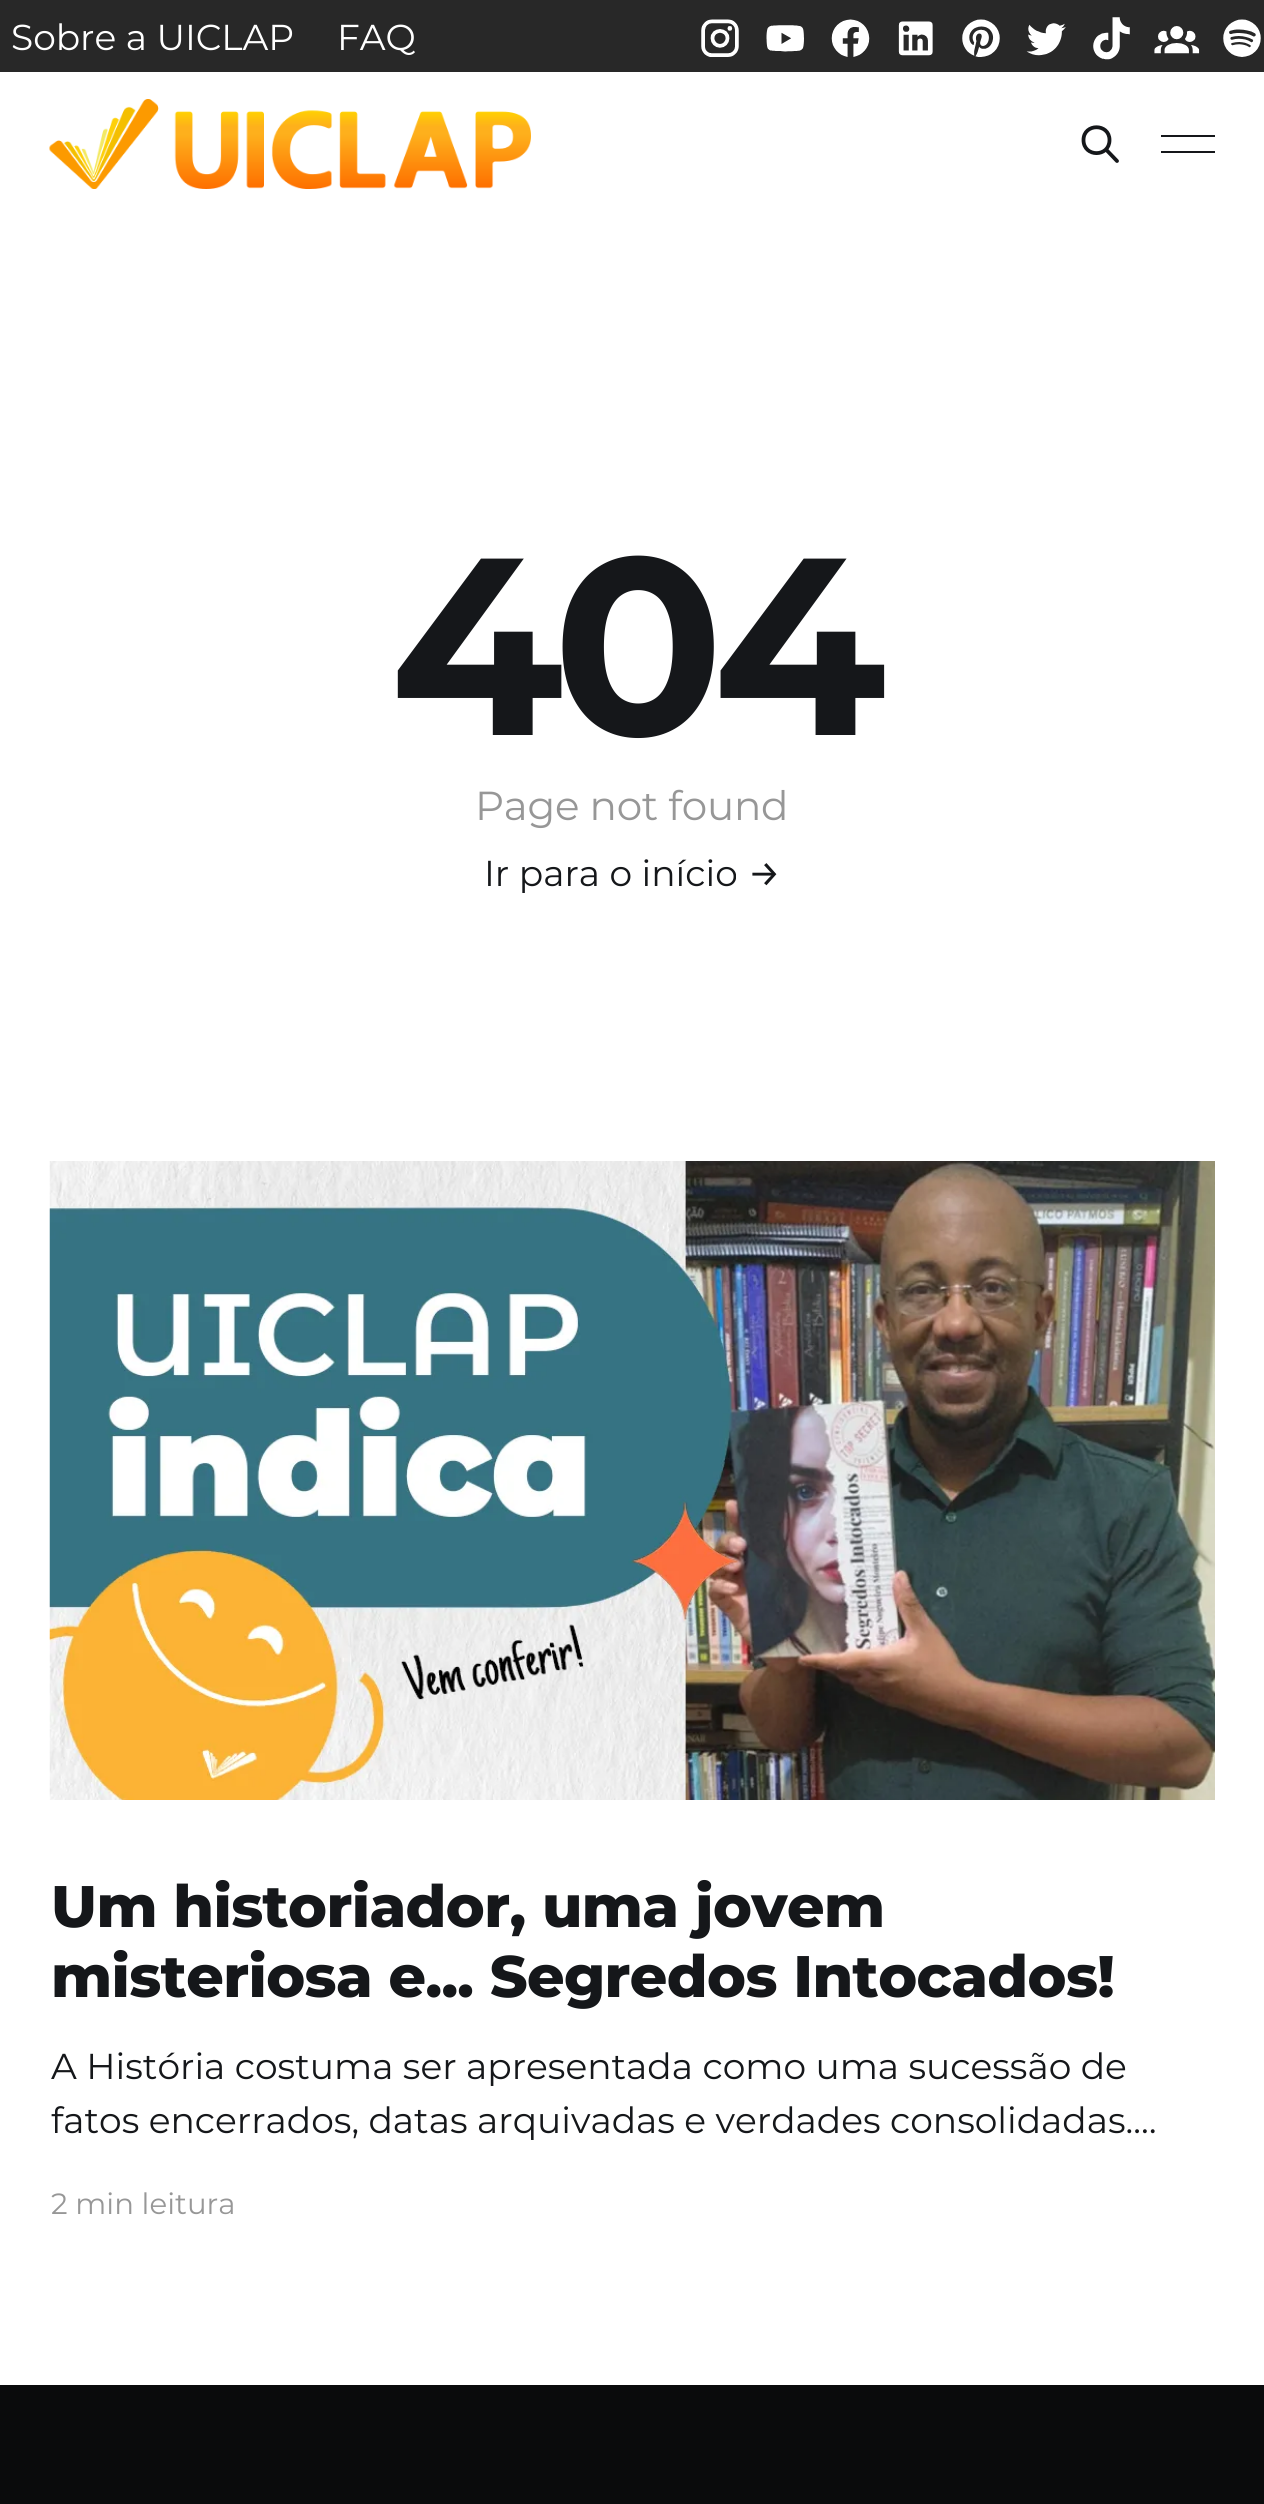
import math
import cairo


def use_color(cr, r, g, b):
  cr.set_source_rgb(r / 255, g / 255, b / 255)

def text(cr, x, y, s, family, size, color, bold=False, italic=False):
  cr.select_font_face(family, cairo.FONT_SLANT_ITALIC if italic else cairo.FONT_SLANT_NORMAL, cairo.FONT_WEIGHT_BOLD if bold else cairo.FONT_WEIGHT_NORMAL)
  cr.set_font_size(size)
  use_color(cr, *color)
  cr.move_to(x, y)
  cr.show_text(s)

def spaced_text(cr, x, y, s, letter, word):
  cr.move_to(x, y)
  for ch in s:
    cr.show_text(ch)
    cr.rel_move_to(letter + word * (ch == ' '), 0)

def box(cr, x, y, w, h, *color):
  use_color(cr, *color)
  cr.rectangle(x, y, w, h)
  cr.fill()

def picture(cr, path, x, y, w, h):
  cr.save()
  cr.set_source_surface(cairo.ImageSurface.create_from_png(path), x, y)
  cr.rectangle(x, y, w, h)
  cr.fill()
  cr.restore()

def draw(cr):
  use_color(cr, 255, 255, 255)
  cr.paint()
  box(cr, 0, 0, 1264, 72, 40, 40, 40)
  picture(cr, "img_01.png", 701, 19, 38, 38)
  picture(cr, "img_02.png", 766, 25, 38, 27)
  picture(cr, "img_03.png", 831, 19, 39, 38)
  picture(cr, "img_04.png", 898, 21, 35, 35)
  picture(cr, "img_05.png", 962, 19, 38, 38)
  picture(cr, "img_06.png", 1026, 23, 40, 33)
  picture(cr, "img_07.png", 1093, 17, 37, 43)
  picture(cr, "img_08.png", 1154, 26, 46, 28)
  picture(cr, "img_09.png", 1223, 19, 38, 38)
  picture(cr, "img_10.png", 49, 99, 482, 90)
  cr.new_path()
  cr.move_to(1117, 161)
  cr.line_to(1106, 149.5)
  cr.move_to(1109.5, 140)
  cr.curve_to(1109.5, 157.5, 1083.5, 157.5, 1083.5, 140)
  cr.curve_to(1083.5, 123, 1109.5, 123, 1109.5, 140)
  cr.close_path()
  use_color(cr, 21, 23, 26)
  cr.set_line_width(3.8)
  cr.set_line_cap(cairo.LINE_CAP_ROUND)
  cr.set_line_join(cairo.LINE_JOIN_ROUND)
  cr.stroke()
  box(cr, 1161, 135, 54, 2, 21, 23, 26)
  box(cr, 1161, 151, 54, 2, 21, 23, 26)
  picture(cr, "img_11.png", 49, 1161, 1166, 639)
  box(cr, 0, 2385, 1264, 119, 10, 11, 12)
  text(cr, 11, 50, "Sobre a UICLAP", "Montserrat", 36, (255, 255, 255))
  text(cr, 337, 50, "FAQ", "Montserrat", 36, (255, 255, 255))
  cr.select_font_face("Montserrat", cairo.FONT_SLANT_NORMAL, cairo.FONT_WEIGHT_BOLD)
  cr.set_font_size(252)
  use_color(cr, 21, 23, 26)
  spaced_text(cr, 390, 735, "404", -11, 0)
  cr.select_font_face("Montserrat")
  cr.set_font_size(40.5)
  use_color(cr, 151, 151, 151)
  spaced_text(cr, 475, 820, "Page not found", -0.25, 0)
  text(cr, 484, 886, "Ir para o início", "Montserrat", 36, (21, 23, 26))
  text(cr, 748, 886, "→", "Fira Sans", 36, (21, 23, 26))
  cr.select_font_face("Montserrat ExtraBold")
  cr.set_font_size(58.5)
  spaced_text(cr, 51, 1927, "Um historiador, uma jovem", -0.6, 0)
  spaced_text(cr, 51, 1997, "misteriosa e... Segredos Intocados!", -0.6, 0)
  text(cr, 51, 2079, "A História costuma ser apresentada como uma sucessão de", "Montserrat", 36, (21, 23, 26))
  text(cr, 51, 2133, "fatos encerrados, datas arquivadas e verdades consolidadas.…", "Montserrat", 36, (21, 23, 26))
  text(cr, 51, 2214, "2 min leitura", "Montserrat", 29.25, (151, 151, 151))


surface = cairo.ImageSurface(cairo.FORMAT_RGB24, 1264, 2504)
cr = cairo.Context(surface)
options = cairo.FontOptions()
options.set_hint_metrics(cairo.HINT_METRICS_OFF)
options.set_hint_style(cairo.HINT_STYLE_NONE)
cr.set_font_options(options)
cr.set_miter_limit(4)
draw(cr)
surface.write_to_png("out.png")
